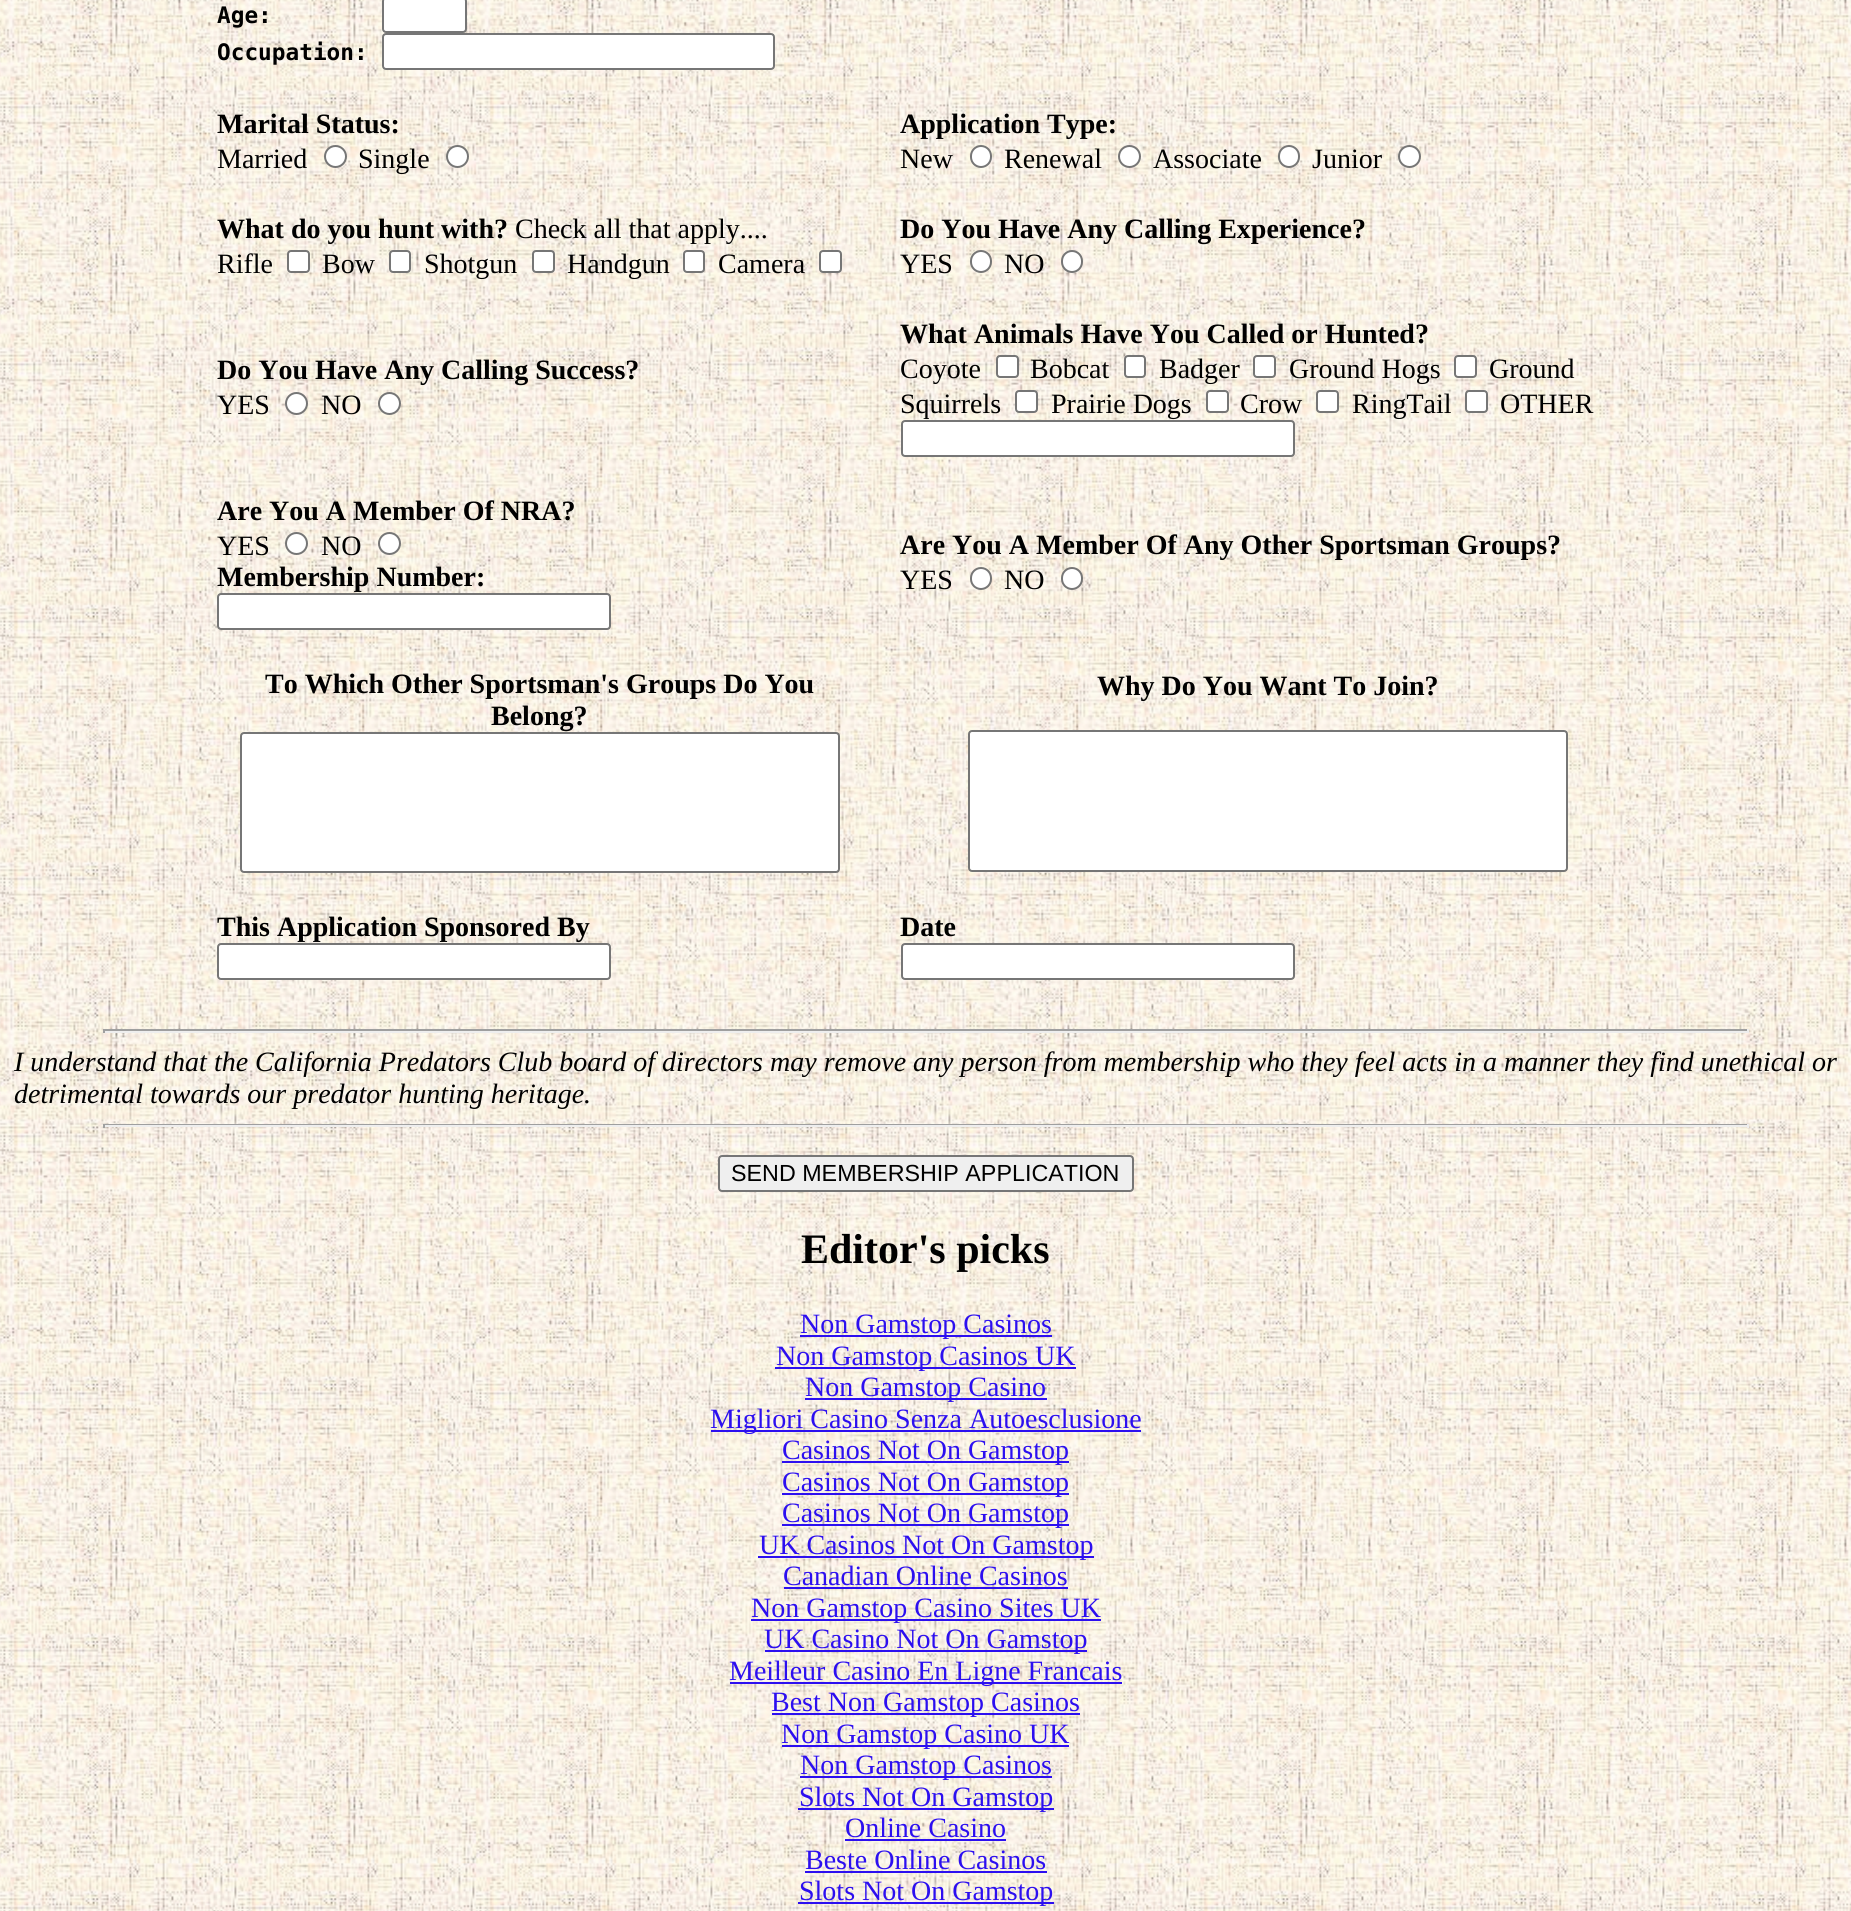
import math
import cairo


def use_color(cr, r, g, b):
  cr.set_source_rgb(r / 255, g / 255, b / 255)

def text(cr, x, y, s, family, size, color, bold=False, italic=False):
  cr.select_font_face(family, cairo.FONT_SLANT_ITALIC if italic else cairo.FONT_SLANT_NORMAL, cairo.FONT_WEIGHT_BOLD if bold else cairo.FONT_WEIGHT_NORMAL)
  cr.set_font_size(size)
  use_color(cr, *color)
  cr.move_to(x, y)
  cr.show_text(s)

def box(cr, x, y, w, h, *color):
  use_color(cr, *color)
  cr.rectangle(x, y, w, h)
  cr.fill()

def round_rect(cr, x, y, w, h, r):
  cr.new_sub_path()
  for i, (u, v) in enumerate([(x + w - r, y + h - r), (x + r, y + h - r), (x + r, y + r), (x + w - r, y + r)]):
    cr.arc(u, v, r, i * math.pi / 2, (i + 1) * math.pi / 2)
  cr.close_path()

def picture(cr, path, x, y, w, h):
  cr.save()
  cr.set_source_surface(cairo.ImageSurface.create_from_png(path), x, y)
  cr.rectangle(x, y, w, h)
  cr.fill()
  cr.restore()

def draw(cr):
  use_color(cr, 255, 255, 255)
  cr.paint()
  picture(cr, "img_01.png", 0, 0, 1851, 1911)
  use_color(cr, 255, 255, 255)
  round_rect(cr, 383, -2, 83, 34, 3)
  cr.fill_preserve()
  use_color(cr, 118, 118, 118)
  cr.stroke()
  use_color(cr, 255, 255, 255)
  round_rect(cr, 383, 34, 391, 35, 3)
  cr.fill_preserve()
  use_color(cr, 118, 118, 118)
  cr.stroke()
  use_color(cr, 255, 255, 255)
  cr.arc(335.5, 156.5, 10.5, 0, 2 * math.pi)
  cr.fill_preserve()
  use_color(cr, 118, 118, 118)
  cr.stroke()
  use_color(cr, 255, 255, 255)
  cr.arc(457.5, 156.5, 10.5, 0, 2 * math.pi)
  cr.fill_preserve()
  use_color(cr, 118, 118, 118)
  cr.stroke()
  use_color(cr, 255, 255, 255)
  round_rect(cr, 971, 146, 20, 21, 10)
  cr.fill_preserve()
  use_color(cr, 118, 118, 118)
  cr.stroke()
  use_color(cr, 255, 255, 255)
  cr.arc(1129.5, 156.5, 10.5, 0, 2 * math.pi)
  cr.fill_preserve()
  use_color(cr, 118, 118, 118)
  cr.stroke()
  use_color(cr, 255, 255, 255)
  round_rect(cr, 1279, 146, 20, 21, 10)
  cr.fill_preserve()
  use_color(cr, 118, 118, 118)
  cr.stroke()
  use_color(cr, 255, 255, 255)
  cr.arc(1409.5, 156.5, 10.5, 0, 2 * math.pi)
  cr.fill_preserve()
  use_color(cr, 118, 118, 118)
  cr.stroke()
  use_color(cr, 255, 255, 255)
  round_rect(cr, 288, 251, 21, 21, 3)
  cr.fill_preserve()
  use_color(cr, 118, 118, 118)
  cr.stroke()
  use_color(cr, 255, 255, 255)
  round_rect(cr, 390, 251, 20, 21, 3)
  cr.fill_preserve()
  use_color(cr, 118, 118, 118)
  cr.stroke()
  use_color(cr, 255, 255, 255)
  round_rect(cr, 533, 251, 21, 21, 3)
  cr.fill_preserve()
  use_color(cr, 118, 118, 118)
  cr.stroke()
  use_color(cr, 255, 255, 255)
  round_rect(cr, 684, 251, 20, 21, 3)
  cr.fill_preserve()
  use_color(cr, 118, 118, 118)
  cr.stroke()
  use_color(cr, 255, 255, 255)
  round_rect(cr, 820, 251, 21, 21, 3)
  cr.fill_preserve()
  use_color(cr, 118, 118, 118)
  cr.stroke()
  use_color(cr, 255, 255, 255)
  round_rect(cr, 971, 251, 20, 21, 10)
  cr.fill_preserve()
  use_color(cr, 118, 118, 118)
  cr.stroke()
  use_color(cr, 255, 255, 255)
  round_rect(cr, 1062, 251, 20, 21, 10)
  cr.fill_preserve()
  use_color(cr, 118, 118, 118)
  cr.stroke()
  use_color(cr, 255, 255, 255)
  cr.arc(296.5, 403.5, 10.5, 0, 2 * math.pi)
  cr.fill_preserve()
  use_color(cr, 118, 118, 118)
  cr.stroke()
  use_color(cr, 255, 255, 255)
  cr.arc(389.5, 403.5, 10.5, 0, 2 * math.pi)
  cr.fill_preserve()
  use_color(cr, 118, 118, 118)
  cr.stroke()
  use_color(cr, 255, 255, 255)
  round_rect(cr, 997, 356, 21, 21, 3)
  cr.fill_preserve()
  use_color(cr, 118, 118, 118)
  cr.stroke()
  use_color(cr, 255, 255, 255)
  round_rect(cr, 1125, 356, 20, 21, 3)
  cr.fill_preserve()
  use_color(cr, 118, 118, 118)
  cr.stroke()
  use_color(cr, 255, 255, 255)
  round_rect(cr, 1254, 356, 21, 21, 3)
  cr.fill_preserve()
  use_color(cr, 118, 118, 118)
  cr.stroke()
  use_color(cr, 255, 255, 255)
  round_rect(cr, 1455, 356, 21, 21, 3)
  cr.fill_preserve()
  use_color(cr, 118, 118, 118)
  cr.stroke()
  use_color(cr, 255, 255, 255)
  round_rect(cr, 1016, 391, 21, 21, 3)
  cr.fill_preserve()
  use_color(cr, 118, 118, 118)
  cr.stroke()
  use_color(cr, 255, 255, 255)
  round_rect(cr, 1207, 391, 21, 21, 3)
  cr.fill_preserve()
  use_color(cr, 118, 118, 118)
  cr.stroke()
  use_color(cr, 255, 255, 255)
  round_rect(cr, 1317, 391, 21, 21, 3)
  cr.fill_preserve()
  use_color(cr, 118, 118, 118)
  cr.stroke()
  use_color(cr, 255, 255, 255)
  round_rect(cr, 1466, 391, 21, 21, 3)
  cr.fill_preserve()
  use_color(cr, 118, 118, 118)
  cr.stroke()
  use_color(cr, 255, 255, 255)
  round_rect(cr, 902, 421, 392, 35, 3)
  cr.fill_preserve()
  use_color(cr, 118, 118, 118)
  cr.stroke()
  use_color(cr, 255, 255, 255)
  cr.arc(296.5, 543.5, 10.5, 0, 2 * math.pi)
  cr.fill_preserve()
  use_color(cr, 118, 118, 118)
  cr.stroke()
  use_color(cr, 255, 255, 255)
  cr.arc(389.5, 543.5, 10.5, 0, 2 * math.pi)
  cr.fill_preserve()
  use_color(cr, 118, 118, 118)
  cr.stroke()
  use_color(cr, 255, 255, 255)
  round_rect(cr, 218, 594, 392, 35, 3)
  cr.fill_preserve()
  use_color(cr, 118, 118, 118)
  cr.stroke()
  use_color(cr, 255, 255, 255)
  round_rect(cr, 971, 568, 20, 21, 10)
  cr.fill_preserve()
  use_color(cr, 118, 118, 118)
  cr.stroke()
  use_color(cr, 255, 255, 255)
  round_rect(cr, 1062, 568, 20, 21, 10)
  cr.fill_preserve()
  use_color(cr, 118, 118, 118)
  cr.stroke()
  use_color(cr, 255, 255, 255)
  round_rect(cr, 241, 733, 598, 139, 3)
  cr.fill_preserve()
  use_color(cr, 118, 118, 118)
  cr.stroke()
  use_color(cr, 255, 255, 255)
  round_rect(cr, 969, 731, 598, 140, 3)
  cr.fill_preserve()
  use_color(cr, 118, 118, 118)
  cr.stroke()
  use_color(cr, 255, 255, 255)
  round_rect(cr, 218, 944, 392, 35, 3)
  cr.fill_preserve()
  use_color(cr, 118, 118, 118)
  cr.stroke()
  use_color(cr, 255, 255, 255)
  round_rect(cr, 902, 944, 392, 35, 3)
  cr.fill_preserve()
  use_color(cr, 118, 118, 118)
  cr.stroke()
  box(cr, 103, 1029, 1645, 2, 159, 159, 159)
  box(cr, 1747, 1029, 2, 4, 238, 238, 238)
  box(cr, 103, 1031, 1645, 2, 238, 238, 238)
  box(cr, 103, 1029, 2, 4, 159, 159, 159)
  box(cr, 103, 1124, 1645, 1, 159, 159, 159)
  box(cr, 1747, 1124, 2, 4, 238, 238, 238)
  box(cr, 103, 1125, 1645, 2, 238, 238, 238)
  box(cr, 103, 1124, 2, 4, 159, 159, 159)
  use_color(cr, 239, 239, 239)
  round_rect(cr, 719, 1156, 414, 35, 3)
  cr.fill_preserve()
  use_color(cr, 118, 118, 118)
  cr.stroke()
  box(cr, 800, 1335, 252, 2, 44, 15, 240)
  box(cr, 775, 1367, 301, 2, 44, 15, 240)
  box(cr, 805, 1398, 242, 2, 44, 15, 240)
  box(cr, 711, 1430, 430, 2, 44, 15, 240)
  box(cr, 782, 1461, 287, 2, 44, 15, 240)
  box(cr, 782, 1493, 287, 2, 44, 15, 240)
  box(cr, 782, 1524, 287, 2, 44, 15, 240)
  box(cr, 758, 1556, 336, 2, 44, 15, 240)
  box(cr, 784, 1587, 284, 2, 44, 15, 240)
  box(cr, 751, 1619, 350, 2, 44, 15, 240)
  box(cr, 765, 1650, 322, 2, 44, 15, 240)
  box(cr, 730, 1682, 392, 2, 44, 15, 240)
  box(cr, 772, 1713, 308, 2, 44, 15, 240)
  box(cr, 782, 1745, 287, 2, 44, 15, 240)
  box(cr, 800, 1776, 252, 2, 44, 15, 240)
  box(cr, 798, 1808, 256, 2, 44, 15, 240)
  box(cr, 845, 1839, 161, 2, 44, 15, 240)
  box(cr, 805, 1871, 242, 2, 44, 15, 240)
  box(cr, 798, 1902, 256, 2, 44, 15, 240)
  text(cr, 217, 23, "Age:", "DejaVu Sans Mono", 22.75, (0, 0, 0), bold=True)
  text(cr, 217, 60, "Occupation:", "DejaVu Sans Mono", 22.75, (0, 0, 0), bold=True)
  text(cr, 217, 133, "Marital Status:", "Liberation Serif", 28, (0, 0, 0), bold=True)
  text(cr, 217, 168, "Married", "Liberation Serif", 28, (0, 0, 0))
  text(cr, 358, 168, "Single", "Liberation Serif", 28, (0, 0, 0))
  text(cr, 900, 133, "Application Type:", "Liberation Serif", 28, (0, 0, 0), bold=True)
  text(cr, 900, 168, "New", "Liberation Serif", 28, (0, 0, 0))
  text(cr, 1004, 168, "Renewal", "Liberation Serif", 28, (0, 0, 0))
  text(cr, 1153, 168, "Associate", "Liberation Serif", 28, (0, 0, 0))
  text(cr, 1312, 168, "Junior", "Liberation Serif", 28, (0, 0, 0))
  text(cr, 217, 238, "What do you hunt with?", "Liberation Serif", 28, (0, 0, 0), bold=True)
  text(cr, 515, 238, "Check all that apply....", "Liberation Serif", 28, (0, 0, 0))
  text(cr, 217, 273, "Rifle", "Liberation Serif", 28, (0, 0, 0))
  text(cr, 322, 273, "Bow", "Liberation Serif", 28, (0, 0, 0))
  text(cr, 424, 273, "Shotgun", "Liberation Serif", 28, (0, 0, 0))
  text(cr, 567, 273, "Handgun", "Liberation Serif", 28, (0, 0, 0))
  text(cr, 718, 273, "Camera", "Liberation Serif", 28, (0, 0, 0))
  text(cr, 900, 238, "Do You Have Any Calling Experience?", "Liberation Serif", 28, (0, 0, 0), bold=True)
  text(cr, 900, 273, "YES", "Liberation Serif", 28, (0, 0, 0))
  text(cr, 1004, 273, "NO", "Liberation Serif", 28, (0, 0, 0))
  text(cr, 217, 379, "Do You Have Any Calling Success?", "Liberation Serif", 28, (0, 0, 0), bold=True)
  text(cr, 217, 414, "YES", "Liberation Serif", 28, (0, 0, 0))
  text(cr, 321, 414, "NO", "Liberation Serif", 28, (0, 0, 0))
  text(cr, 900, 343, "What Animals Have You Called or Hunted?", "Liberation Serif", 28, (0, 0, 0), bold=True)
  text(cr, 900, 378, "Coyote", "Liberation Serif", 28, (0, 0, 0))
  text(cr, 1030, 378, "Bobcat", "Liberation Serif", 28, (0, 0, 0))
  text(cr, 1159, 378, "Badger", "Liberation Serif", 28, (0, 0, 0))
  text(cr, 1289, 378, "Ground Hogs", "Liberation Serif", 28, (0, 0, 0))
  text(cr, 1489, 378, "Ground", "Liberation Serif", 28, (0, 0, 0))
  text(cr, 900, 413, "Squirrels", "Liberation Serif", 28, (0, 0, 0))
  text(cr, 1051, 413, "Prairie Dogs", "Liberation Serif", 28, (0, 0, 0))
  text(cr, 1240, 413, "Crow", "Liberation Serif", 28, (0, 0, 0))
  text(cr, 1352, 413, "RingTail", "Liberation Serif", 28, (0, 0, 0))
  text(cr, 1500, 413, "OTHER", "Liberation Serif", 28, (0, 0, 0))
  text(cr, 217, 520, "Are You A Member Of NRA?", "Liberation Serif", 28, (0, 0, 0), bold=True)
  text(cr, 217, 555, "YES", "Liberation Serif", 28, (0, 0, 0))
  text(cr, 321, 555, "NO", "Liberation Serif", 28, (0, 0, 0))
  text(cr, 217, 586, "Membership Number:", "Liberation Serif", 28, (0, 0, 0), bold=True)
  text(cr, 900, 554, "Are You A Member Of Any Other Sportsman Groups?", "Liberation Serif", 28, (0, 0, 0), bold=True)
  text(cr, 900, 589, "YES", "Liberation Serif", 28, (0, 0, 0))
  text(cr, 1004, 589, "NO", "Liberation Serif", 28, (0, 0, 0))
  text(cr, 265, 693, "To Which Other Sportsman's Groups Do You", "Liberation Serif", 28, (0, 0, 0), bold=True)
  text(cr, 491, 725, "Belong?", "Liberation Serif", 28, (0, 0, 0), bold=True)
  text(cr, 1097, 695, "Why Do You Want To Join?", "Liberation Serif", 28, (0, 0, 0), bold=True)
  text(cr, 217, 936, "This Application Sponsored By", "Liberation Serif", 28, (0, 0, 0), bold=True)
  text(cr, 900, 936, "Date", "Liberation Serif", 28, (0, 0, 0), bold=True)
  text(cr, 14, 1071, "I understand that the California Predators Club board of directors may remove any person from membership who they feel acts in a manner they find unethical or", "Liberation Serif", 28, (0, 0, 0), italic=True)
  text(cr, 14, 1103, "detrimental towards our predator hunting heritage.", "Liberation Serif", 28, (0, 0, 0), italic=True)
  text(cr, 731, 1181, "SEND MEMBERSHIP APPLICATION", "Liberation Sans", 23.3, (0, 0, 0))
  text(cr, 801, 1263, "Editor's picks", "Liberation Serif", 42, (0, 0, 0), bold=True)
  text(cr, 800, 1333, "Non Gamstop Casinos", "Liberation Serif", 28, (44, 15, 240))
  text(cr, 776, 1365, "Non Gamstop Casinos UK", "Liberation Serif", 28, (44, 15, 240))
  text(cr, 805, 1396, "Non Gamstop Casino", "Liberation Serif", 28, (44, 15, 240))
  text(cr, 710, 1428, "Migliori Casino Senza Autoesclusione", "Liberation Serif", 28, (44, 15, 240))
  text(cr, 782, 1459, "Casinos Not On Gamstop", "Liberation Serif", 28, (44, 15, 240))
  text(cr, 782, 1491, "Casinos Not On Gamstop", "Liberation Serif", 28, (44, 15, 240))
  text(cr, 782, 1522, "Casinos Not On Gamstop", "Liberation Serif", 28, (44, 15, 240))
  text(cr, 759, 1554, "UK Casinos Not On Gamstop", "Liberation Serif", 28, (44, 15, 240))
  text(cr, 783, 1585, "Canadian Online Casinos", "Liberation Serif", 28, (44, 15, 240))
  text(cr, 751, 1617, "Non Gamstop Casino Sites UK", "Liberation Serif", 28, (44, 15, 240))
  text(cr, 764, 1648, "UK Casino Not On Gamstop", "Liberation Serif", 28, (44, 15, 240))
  text(cr, 729, 1680, "Meilleur Casino En Ligne Francais", "Liberation Serif", 28, (44, 15, 240))
  text(cr, 771, 1711, "Best Non Gamstop Casinos", "Liberation Serif", 28, (44, 15, 240))
  text(cr, 781, 1743, "Non Gamstop Casino UK", "Liberation Serif", 28, (44, 15, 240))
  text(cr, 800, 1774, "Non Gamstop Casinos", "Liberation Serif", 28, (44, 15, 240))
  text(cr, 799, 1806, "Slots Not On Gamstop", "Liberation Serif", 28, (44, 15, 240))
  text(cr, 845, 1837, "Online Casino", "Liberation Serif", 28, (44, 15, 240))
  text(cr, 805, 1869, "Beste Online Casinos", "Liberation Serif", 28, (44, 15, 240))
  text(cr, 799, 1900, "Slots Not On Gamstop", "Liberation Serif", 28, (44, 15, 240))


surface = cairo.ImageSurface(cairo.FORMAT_RGB24, 1851, 1911)
cr = cairo.Context(surface)
options = cairo.FontOptions()
options.set_hint_metrics(cairo.HINT_METRICS_OFF)
options.set_hint_style(cairo.HINT_STYLE_NONE)
cr.set_font_options(options)
cr.set_miter_limit(4)
draw(cr)
surface.write_to_png("out.png")
